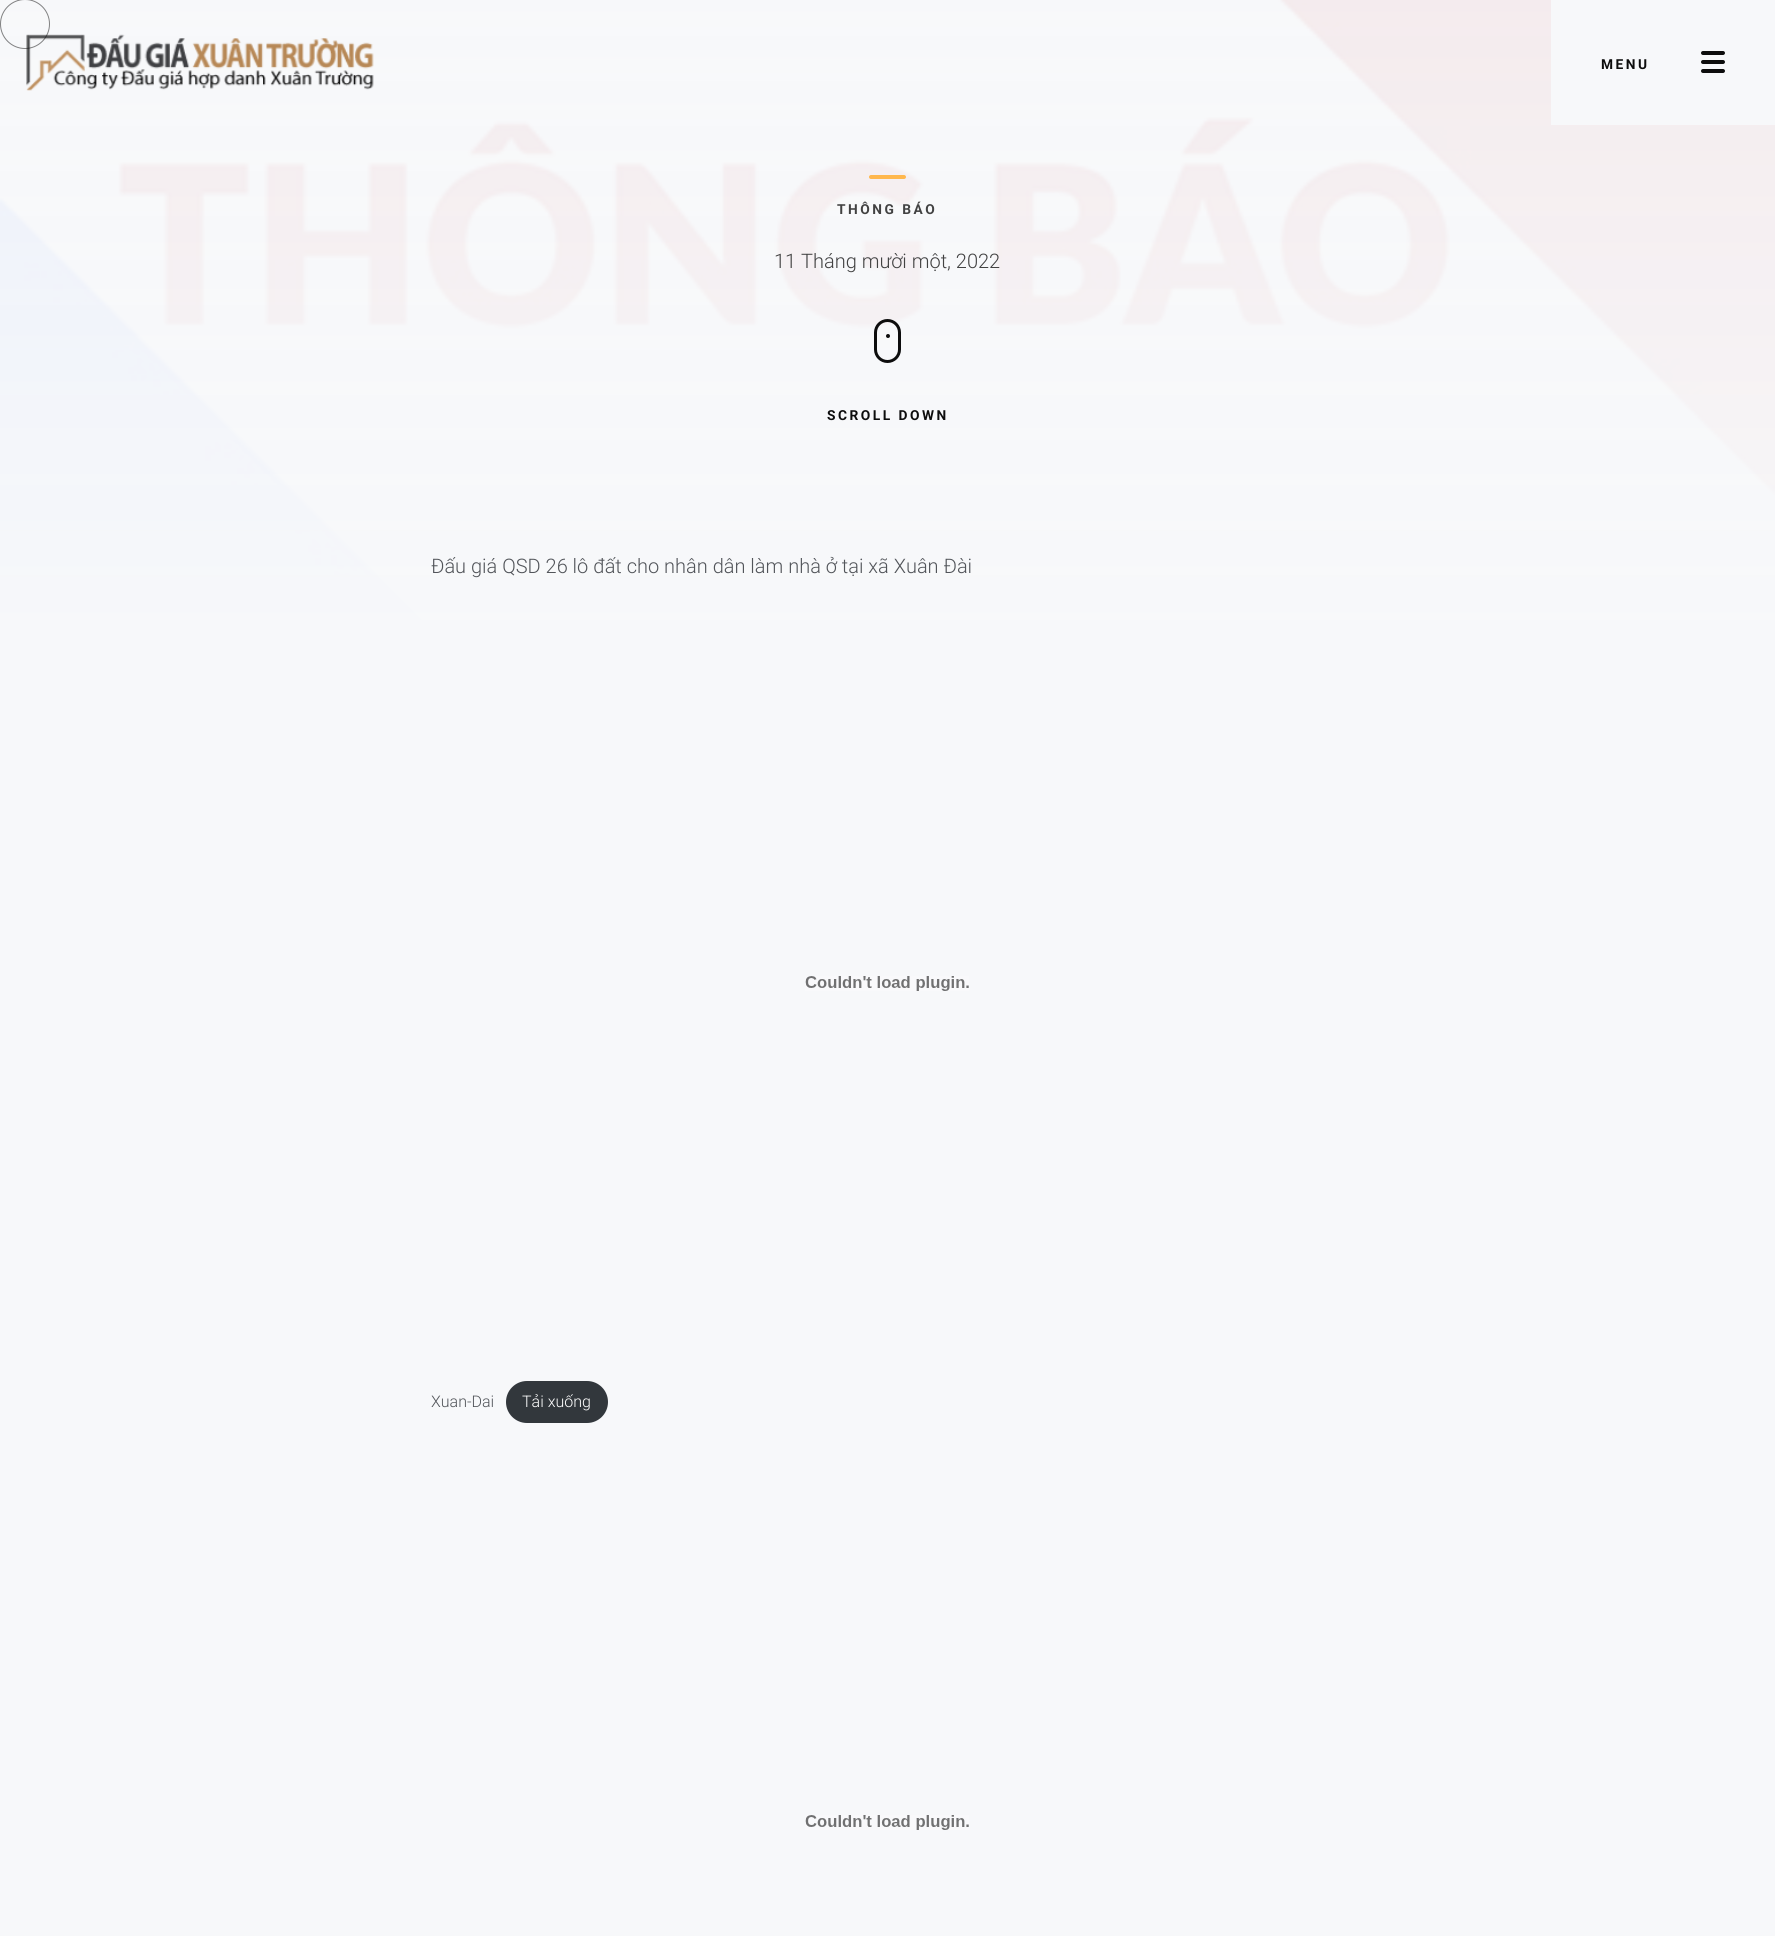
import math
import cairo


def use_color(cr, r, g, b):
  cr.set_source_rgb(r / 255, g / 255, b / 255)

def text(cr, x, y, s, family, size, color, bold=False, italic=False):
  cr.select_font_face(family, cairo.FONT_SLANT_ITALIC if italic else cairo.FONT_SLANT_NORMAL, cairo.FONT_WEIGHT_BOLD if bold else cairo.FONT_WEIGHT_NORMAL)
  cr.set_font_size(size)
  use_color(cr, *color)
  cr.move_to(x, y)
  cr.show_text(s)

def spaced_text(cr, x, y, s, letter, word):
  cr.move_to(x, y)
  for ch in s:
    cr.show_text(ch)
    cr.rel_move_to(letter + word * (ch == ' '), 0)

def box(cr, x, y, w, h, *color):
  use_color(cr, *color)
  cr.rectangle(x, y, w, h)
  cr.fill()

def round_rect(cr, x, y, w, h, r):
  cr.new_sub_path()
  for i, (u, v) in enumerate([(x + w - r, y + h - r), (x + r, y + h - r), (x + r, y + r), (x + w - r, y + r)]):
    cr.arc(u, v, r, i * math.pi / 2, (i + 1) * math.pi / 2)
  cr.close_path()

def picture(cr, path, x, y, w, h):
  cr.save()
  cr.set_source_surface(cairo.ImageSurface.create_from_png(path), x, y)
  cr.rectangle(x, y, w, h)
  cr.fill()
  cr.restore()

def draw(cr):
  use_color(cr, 247, 248, 250)
  cr.paint()
  picture(cr, "img_02.png", 0, 0, 1775, 620)
  gradient = cairo.LinearGradient(888, 694, 888, 0)
  gradient.add_color_stop_rgba(0.01, 0.969, 0.973, 0.98, 1)
  gradient.add_color_stop_rgba(1, 0.969, 0.973, 0.98, 0.94)
  gradient.add_color_stop_rgba(1, 0.969, 0.973, 0.98, 0.89)
  cr.set_source(gradient)
  cr.rectangle(0, 0, 1775, 620)
  cr.fill()
  picture(cr, "img_01.png", 26, 34, 348, 57)
  cr.arc(25, 24, 24.5, 0, 2 * math.pi)
  cr.set_source_rgba(0.051, 0.051, 0.051, 0.5)
  cr.set_line_width(1)
  cr.stroke()
  box(cr, 1551, 0, 224, 125, 247, 248, 250)
  use_color(cr, 13, 13, 13)
  round_rect(cr, 1701, 60, 24, 4, 2)
  cr.fill()
  round_rect(cr, 1701, 51, 24, 4, 2)
  cr.fill()
  round_rect(cr, 1701, 69, 24, 4, 2)
  cr.fill()
  use_color(cr, 255, 183, 77)
  round_rect(cr, 869, 175, 37, 4, 2)
  cr.fill()
  round_rect(cr, 875.5, 320.5, 24, 41, 12)
  use_color(cr, 13, 13, 13)
  cr.set_line_width(3)
  cr.stroke()
  cr.arc(888, 336, 2, 0, 2 * math.pi)
  cr.fill()
  picture(cr, "img_03.png", 805, 976, 164, 15)
  use_color(cr, 50, 55, 60)
  round_rect(cr, 506, 1381, 102, 42, 21)
  cr.fill()
  picture(cr, "img_03.png", 805, 1815, 164, 15)
  cr.select_font_face("Roboto", cairo.FONT_SLANT_NORMAL, cairo.FONT_WEIGHT_BOLD)
  cr.set_font_size(13.75)
  use_color(cr, 13, 13, 13)
  spaced_text(cr, 1601, 69, "MENU", 2.5, 0)
  use_color(cr, 66, 66, 66)
  spaced_text(cr, 837, 214, "THÔNG BÁO", 2.5, 0)
  text(cr, 774, 268, "11 Tháng mười một, 2022", "Roboto Light", 20, (66, 66, 66))
  cr.select_font_face("Roboto", cairo.FONT_SLANT_NORMAL, cairo.FONT_WEIGHT_BOLD)
  cr.set_font_size(13.75)
  use_color(cr, 13, 13, 13)
  spaced_text(cr, 827, 420, "SCROLL DOWN", 2.5, 0)
  text(cr, 431, 573, "Đấu giá QSD 26 lô đất cho nhân dân làm nhà ở tại xã Xuân Đài", "Roboto Light", 20, (82, 85, 90))
  text(cr, 431, 1407, "Xuan-Dai", "Roboto Light", 16, (82, 85, 90))
  text(cr, 522, 1407, "Tải xuống", "Roboto Light", 16, (255, 255, 255))


surface = cairo.ImageSurface(cairo.FORMAT_RGB24, 1775, 1936)
cr = cairo.Context(surface)
options = cairo.FontOptions()
options.set_hint_metrics(cairo.HINT_METRICS_OFF)
options.set_hint_style(cairo.HINT_STYLE_NONE)
cr.set_font_options(options)
cr.set_miter_limit(4)
draw(cr)
surface.write_to_png("out.png")
